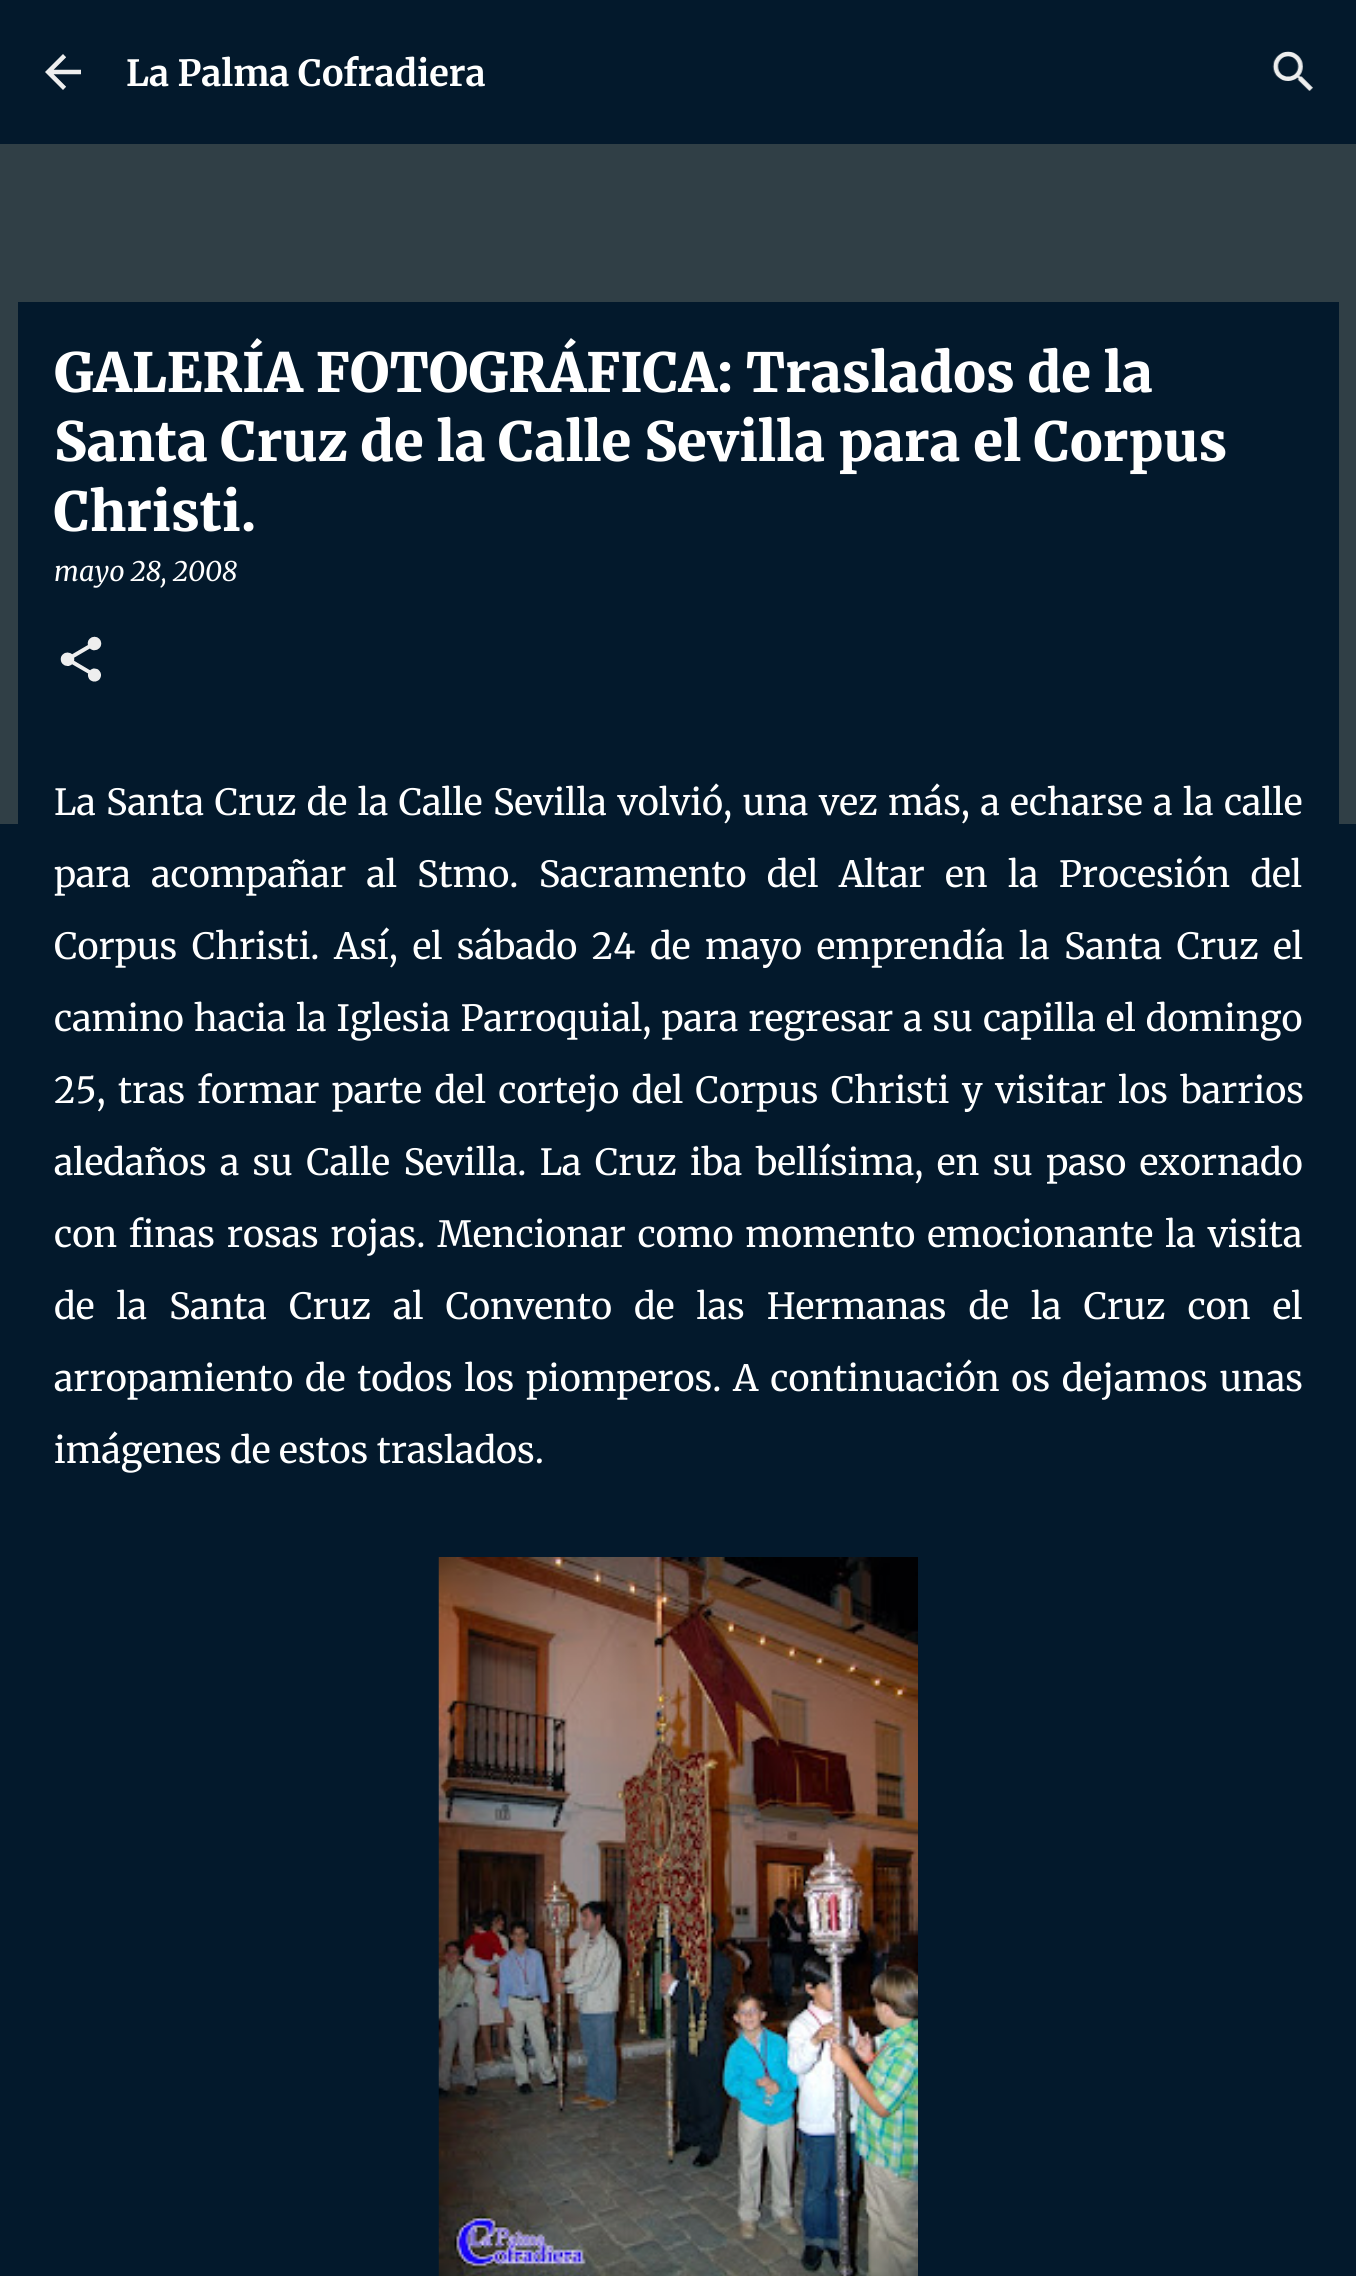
import math
import cairo


def use_color(cr, r, g, b):
  cr.set_source_rgb(r / 255, g / 255, b / 255)

def text(cr, x, y, s, family, size, color, bold=False, italic=False):
  cr.select_font_face(family, cairo.FONT_SLANT_ITALIC if italic else cairo.FONT_SLANT_NORMAL, cairo.FONT_WEIGHT_BOLD if bold else cairo.FONT_WEIGHT_NORMAL)
  cr.set_font_size(size)
  use_color(cr, *color)
  cr.move_to(x, y)
  cr.show_text(s)

def spaced_text(cr, x, y, s, letter, word):
  cr.move_to(x, y)
  for ch in s:
    cr.show_text(ch)
    cr.rel_move_to(letter + word * (ch == ' '), 0)

def box(cr, x, y, w, h, *color):
  use_color(cr, *color)
  cr.rectangle(x, y, w, h)
  cr.fill()

def picture(cr, path, x, y, w, h):
  cr.save()
  cr.set_source_surface(cairo.ImageSurface.create_from_png(path), x, y)
  cr.rectangle(x, y, w, h)
  cr.fill()
  cr.restore()

def draw(cr):
  use_color(cr, 48, 63, 70)
  cr.paint()
  box(cr, 0, 0, 1356, 144, 3, 25, 44)
  picture(cr, "img_01.png", 45, 54, 36, 36)
  picture(cr, "img_02.png", 1272, 51, 41, 40)
  box(cr, 0, 824, 1356, 1452, 3, 25, 44)
  box(cr, 18, 302, 1321, 522, 3, 25, 44)
  picture(cr, "img_03.png", 60, 636, 42, 46)
  picture(cr, "img_04.png", 438, 1557, 480, 719)
  text(cr, 126, 86, "La Palma Cofradiera", "Merriweather", 36, (255, 255, 255), bold=True)
  text(cr, 54, 392, "GALERÍA FOTOGRÁFICA: Traslados de la", "Merriweather Black", 54, (255, 255, 255))
  text(cr, 54, 461, "Santa Cruz de la Calle Sevilla para el Corpus", "Merriweather Black", 54, (255, 255, 255))
  text(cr, 54, 531, "Christi.", "Merriweather Black", 54, (255, 255, 255))
  text(cr, 54, 581, "mayo 28, 2008", "Merriweather", 27, (255, 255, 255), italic=True)
  cr.select_font_face("Merriweather")
  cr.set_font_size(36)
  spaced_text(cr, 54, 815, "La Santa Cruz de la Calle Sevilla volvió, una vez más, a echarse a la calle", 0, 1.9)
  spaced_text(cr, 54, 887, "para acompañar al Stmo. Sacramento del Altar en la Procesión del", 0, 11.75)
  spaced_text(cr, 54, 959, "Corpus Christi. Así, el sábado 24 de mayo emprendía la Santa Cruz el", 0, 6)
  spaced_text(cr, 54, 1031, "camino hacia la Iglesia Parroquial, para regresar a su capilla el domingo", 0, 1.5)
  spaced_text(cr, 54, 1103, "25, tras formar parte del cortejo del Corpus Christi y visitar los barrios", 0, 3.75)
  spaced_text(cr, 54, 1175, "aledaños a su Calle Sevilla. La Cruz iba bellísima, en su paso exornado", 0, 4.75)
  spaced_text(cr, 54, 1247, "con finas rosas rojas. Mencionar como momento emocionante la visita", 0, 3.25)
  spaced_text(cr, 54, 1319, "de la Santa Cruz al Convento de las Hermanas de la Cruz con el", 0, 13.5)
  spaced_text(cr, 54, 1391, "arropamiento de todos los piomperos. A continuación os dejamos unas", 0, 3.25)
  text(cr, 54, 1463, "imágenes de estos traslados.", "Merriweather", 36, (255, 255, 255))


surface = cairo.ImageSurface(cairo.FORMAT_RGB24, 1356, 2276)
cr = cairo.Context(surface)
options = cairo.FontOptions()
options.set_hint_metrics(cairo.HINT_METRICS_OFF)
options.set_hint_style(cairo.HINT_STYLE_NONE)
cr.set_font_options(options)
cr.set_miter_limit(4)
draw(cr)
surface.write_to_png("out.png")
